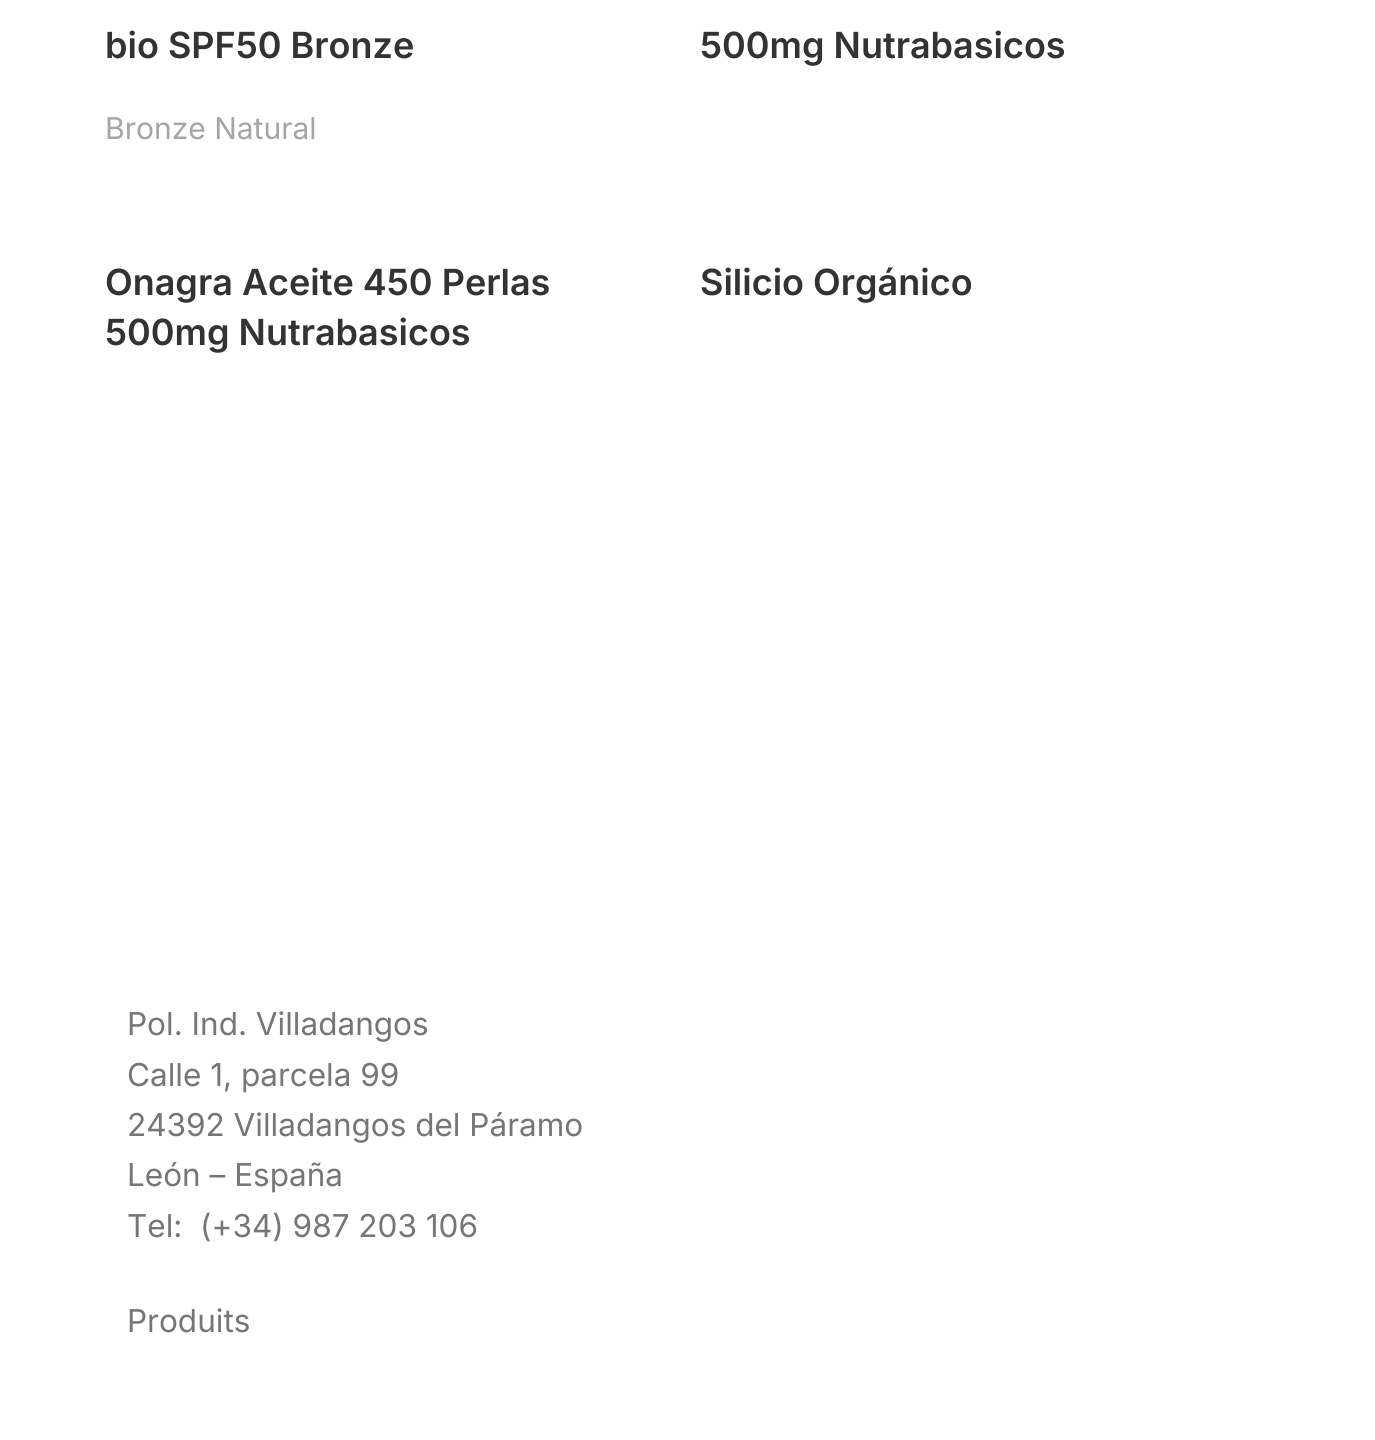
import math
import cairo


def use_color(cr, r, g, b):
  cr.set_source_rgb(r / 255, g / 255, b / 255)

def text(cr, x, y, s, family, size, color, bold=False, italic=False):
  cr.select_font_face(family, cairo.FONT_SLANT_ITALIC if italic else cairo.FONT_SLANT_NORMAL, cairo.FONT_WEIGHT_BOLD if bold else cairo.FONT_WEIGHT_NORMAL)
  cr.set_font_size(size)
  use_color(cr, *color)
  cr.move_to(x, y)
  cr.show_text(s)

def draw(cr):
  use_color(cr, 255, 255, 255)
  cr.paint()
  text(cr, 105, 58, "bio SPF50 Bronze", "Inter SemiBold", 36, (51, 51, 51))
  text(cr, 105, 139, "Bronze Natural", "Inter", 30, (165, 165, 165))
  text(cr, 700, 58, "500mg Nutrabasicos", "Inter SemiBold", 36, (51, 51, 51))
  text(cr, 105, 295, "Onagra Aceite 450 Perlas", "Inter SemiBold", 36, (51, 51, 51))
  text(cr, 105, 345, "500mg Nutrabasicos", "Inter SemiBold", 36, (51, 51, 51))
  text(cr, 700, 295, "Silicio Orgánico", "Inter SemiBold", 36, (51, 51, 51))
  text(cr, 127, 1035, "Pol. Ind. Villadangos", "Inter", 31.5, (118, 118, 118))
  text(cr, 127, 1086, "Calle 1, parcela 99", "Inter", 31.5, (118, 118, 118))
  text(cr, 127, 1136, "24392 Villadangos del Páramo", "Inter", 31.5, (118, 118, 118))
  text(cr, 127, 1186, "León – España", "Inter", 31.5, (118, 118, 118))
  text(cr, 127, 1237, "Tel:  (+34) 987 203 106", "Inter", 31.5, (118, 118, 118))
  text(cr, 127, 1332, "Produits", "Inter", 31.5, (118, 118, 118))


surface = cairo.ImageSurface(cairo.FORMAT_RGB24, 1375, 1440)
cr = cairo.Context(surface)
options = cairo.FontOptions()
options.set_hint_metrics(cairo.HINT_METRICS_OFF)
options.set_hint_style(cairo.HINT_STYLE_NONE)
cr.set_font_options(options)
cr.set_miter_limit(4)
draw(cr)
surface.write_to_png("out.png")
